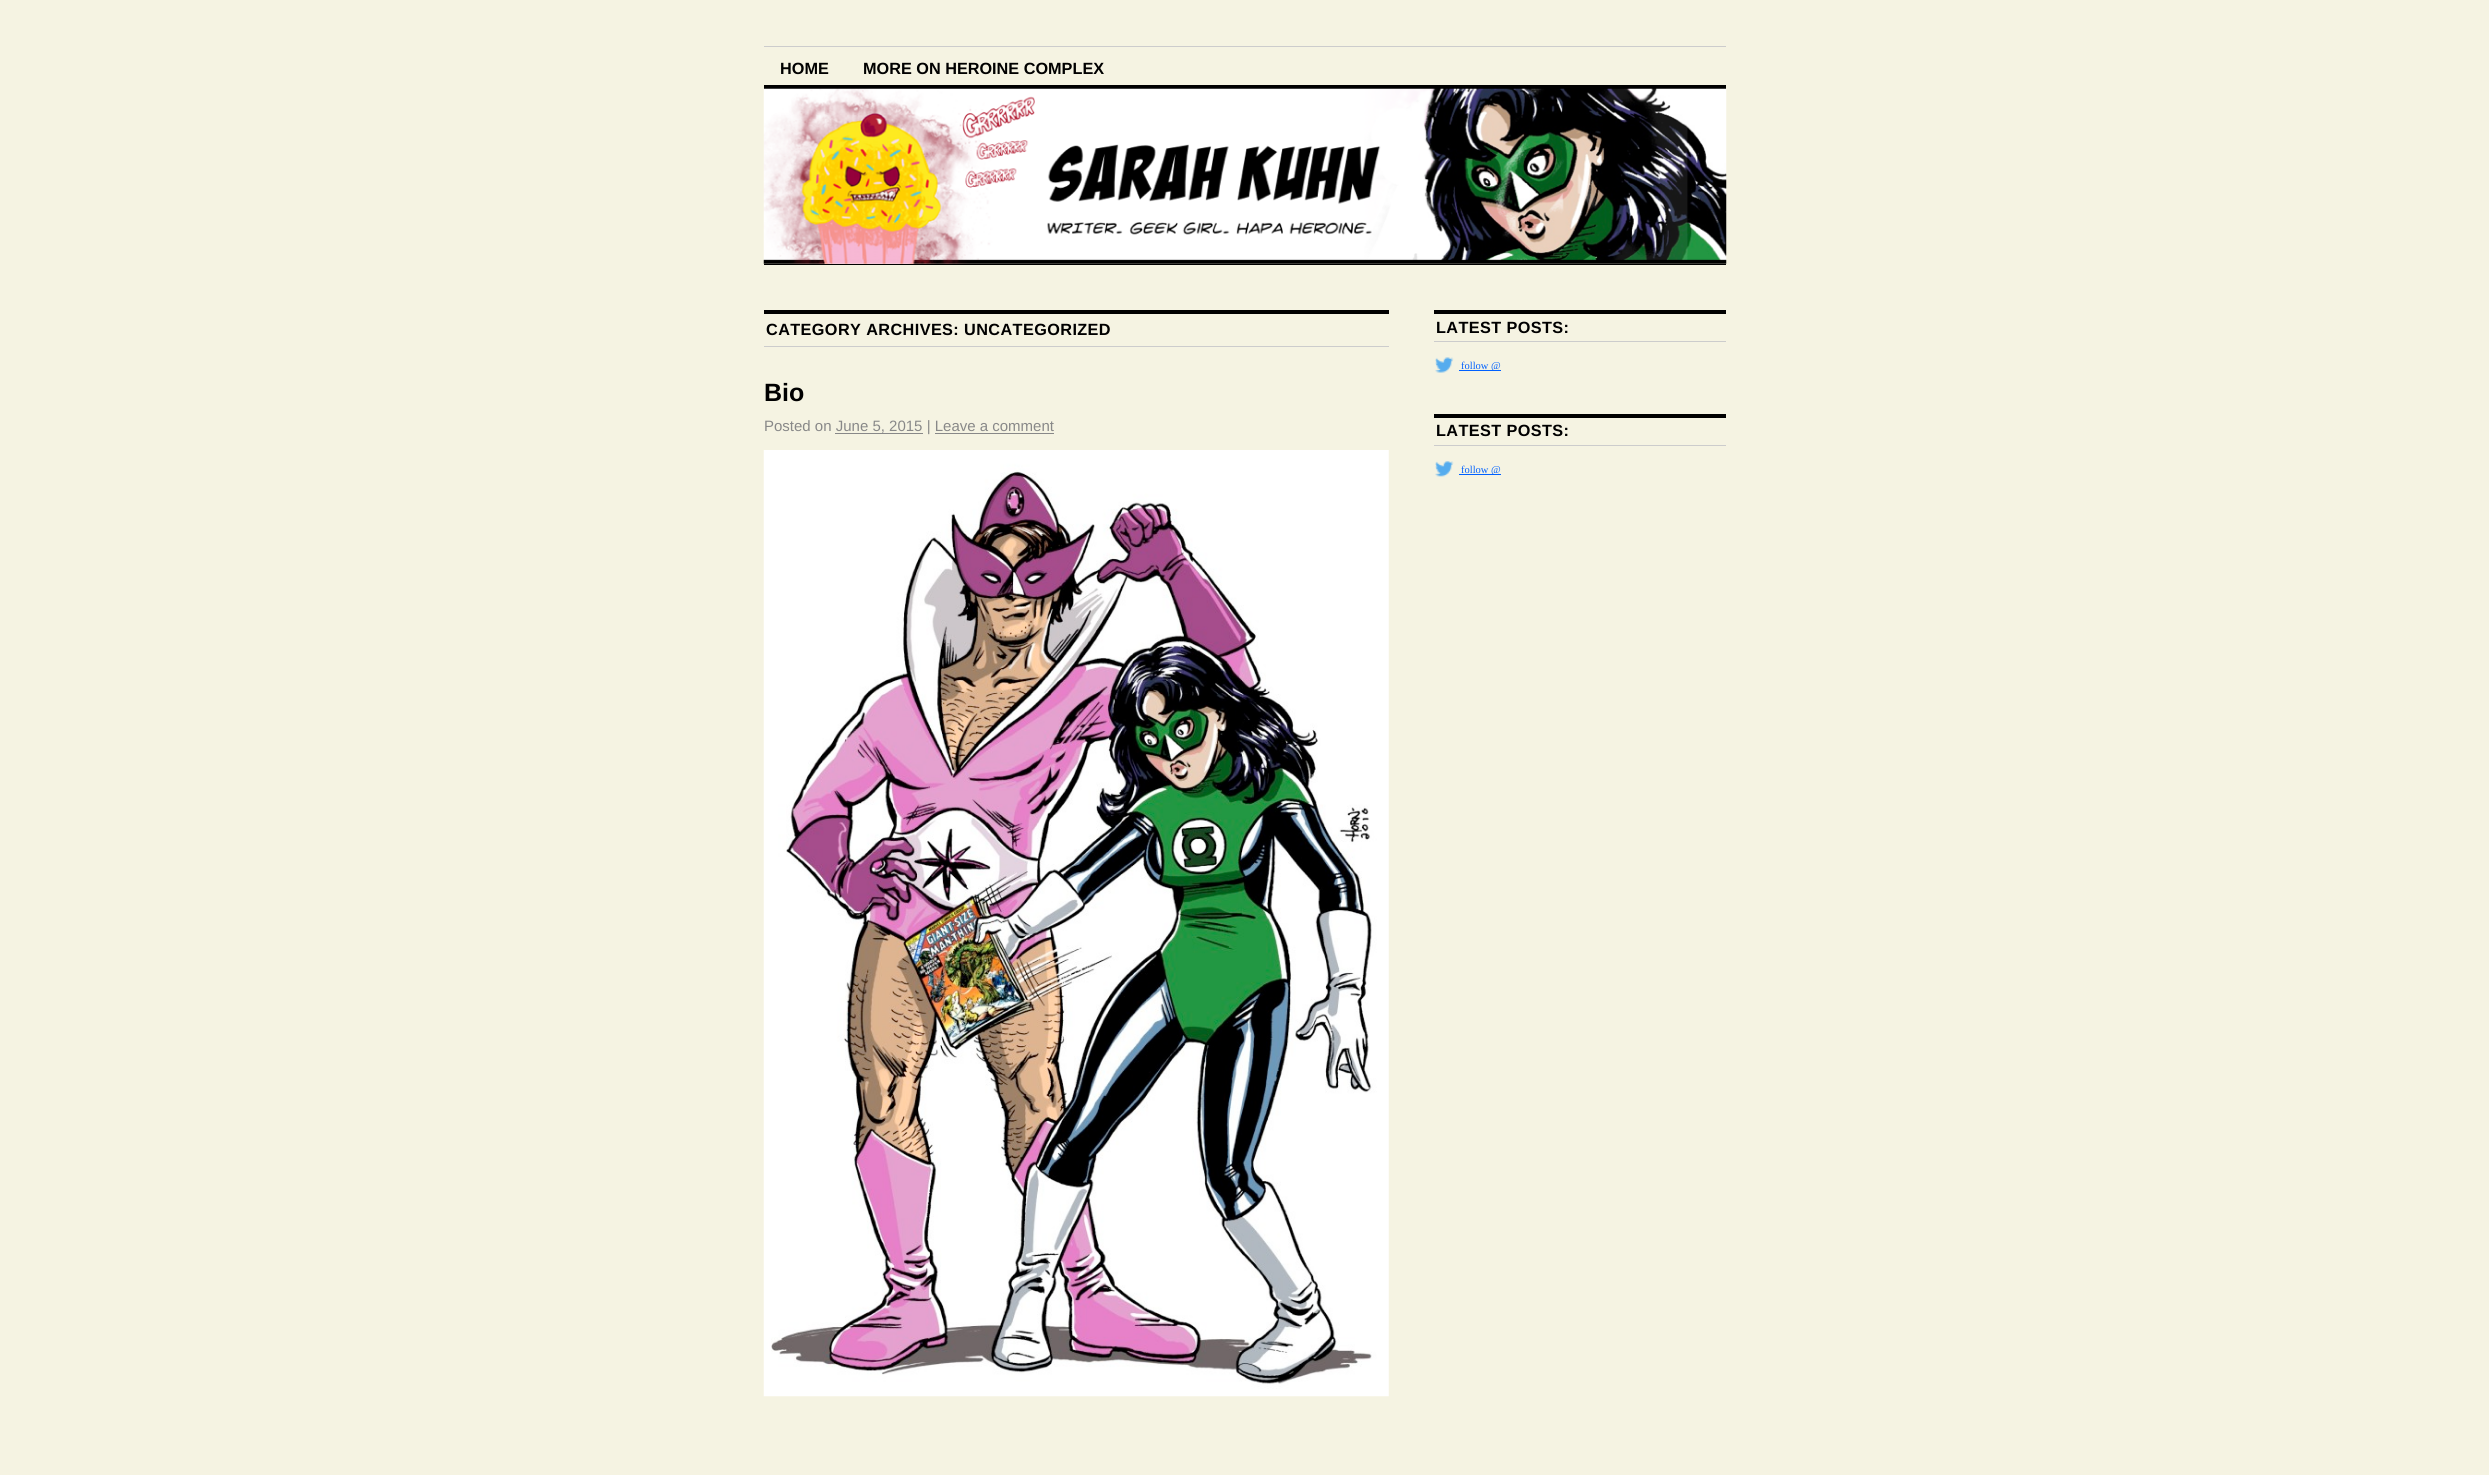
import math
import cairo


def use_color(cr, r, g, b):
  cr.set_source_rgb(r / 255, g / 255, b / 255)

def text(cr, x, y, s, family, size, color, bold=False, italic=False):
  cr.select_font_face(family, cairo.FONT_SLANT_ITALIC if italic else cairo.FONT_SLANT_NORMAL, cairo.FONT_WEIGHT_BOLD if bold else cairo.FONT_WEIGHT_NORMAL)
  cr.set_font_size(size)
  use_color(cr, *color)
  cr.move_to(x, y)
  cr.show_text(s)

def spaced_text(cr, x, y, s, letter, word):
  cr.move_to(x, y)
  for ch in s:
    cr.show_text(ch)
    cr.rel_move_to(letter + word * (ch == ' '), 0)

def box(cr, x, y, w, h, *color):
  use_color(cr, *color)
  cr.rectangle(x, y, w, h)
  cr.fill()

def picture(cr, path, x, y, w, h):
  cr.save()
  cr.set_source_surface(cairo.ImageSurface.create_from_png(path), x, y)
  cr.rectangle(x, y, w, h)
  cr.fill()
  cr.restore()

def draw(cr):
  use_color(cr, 245, 243, 226)
  cr.paint()
  box(cr, 764, 46, 962, 1, 204, 204, 204)
  box(cr, 764, 85, 962, 4, 0, 0, 0)
  picture(cr, "img_01.png", 763, 88, 964, 176)
  box(cr, 764, 264, 962, 1, 0, 0, 0)
  box(cr, 764, 310, 625, 4, 0, 0, 0)
  box(cr, 764, 346, 625, 1, 204, 204, 204)
  box(cr, 835, 433, 88, 1, 136, 136, 136)
  box(cr, 935, 433, 119, 1, 136, 136, 136)
  picture(cr, "img_02.png", 763, 450, 626, 947)
  box(cr, 1434, 310, 292, 4, 0, 0, 0)
  box(cr, 1434, 341, 292, 1, 204, 204, 204)
  picture(cr, "img_03.png", 1435, 357, 19, 16)
  box(cr, 1459, 370, 42, 1, 0, 96, 255)
  box(cr, 1434, 414, 292, 4, 0, 0, 0)
  box(cr, 1434, 445, 292, 1, 204, 204, 204)
  picture(cr, "img_04.png", 1435, 461, 19, 16)
  box(cr, 1459, 474, 42, 1, 0, 96, 255)
  text(cr, 780, 74, "HOME", "Liberation Sans", 16.25, (0, 0, 0), bold=True)
  text(cr, 863, 74, "MORE ON HEROINE COMPLEX", "Liberation Sans", 16.25, (0, 0, 0), bold=True)
  spaced_text(cr, 766, 335, "CATEGORY ARCHIVES: UNCATEGORIZED", 0.4, 0)
  text(cr, 764, 401, "Bio", "Liberation Sans", 25, (0, 0, 0), bold=True)
  text(cr, 764, 431, "Posted on June 5, 2015 | Leave a comment", "Liberation Sans", 15, (136, 136, 136))
  cr.select_font_face("Liberation Sans", cairo.FONT_SLANT_NORMAL, cairo.FONT_WEIGHT_BOLD)
  cr.set_font_size(16.25)
  use_color(cr, 0, 0, 0)
  spaced_text(cr, 1436, 333, "LATEST POSTS:", 0.4, 0)
  text(cr, 1461, 369, "follow @", "Liberation Serif", 10.5, (0, 96, 255))
  cr.select_font_face("Liberation Sans", cairo.FONT_SLANT_NORMAL, cairo.FONT_WEIGHT_BOLD)
  cr.set_font_size(16.25)
  use_color(cr, 0, 0, 0)
  spaced_text(cr, 1436, 436, "LATEST POSTS:", 0.4, 0)
  text(cr, 1461, 473, "follow @", "Liberation Serif", 10.5, (0, 96, 255))


surface = cairo.ImageSurface(cairo.FORMAT_RGB24, 2489, 1475)
cr = cairo.Context(surface)
options = cairo.FontOptions()
options.set_hint_metrics(cairo.HINT_METRICS_OFF)
options.set_hint_style(cairo.HINT_STYLE_NONE)
cr.set_font_options(options)
cr.set_miter_limit(4)
draw(cr)
surface.write_to_png("out.png")
